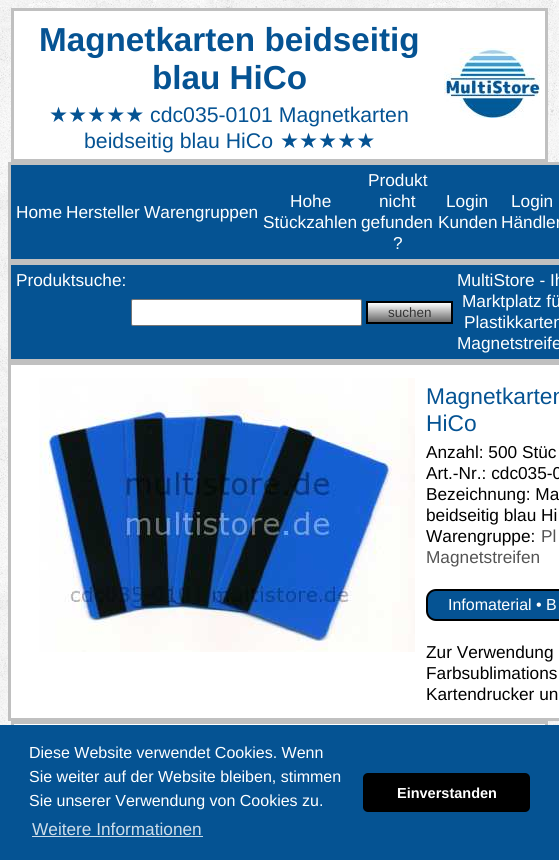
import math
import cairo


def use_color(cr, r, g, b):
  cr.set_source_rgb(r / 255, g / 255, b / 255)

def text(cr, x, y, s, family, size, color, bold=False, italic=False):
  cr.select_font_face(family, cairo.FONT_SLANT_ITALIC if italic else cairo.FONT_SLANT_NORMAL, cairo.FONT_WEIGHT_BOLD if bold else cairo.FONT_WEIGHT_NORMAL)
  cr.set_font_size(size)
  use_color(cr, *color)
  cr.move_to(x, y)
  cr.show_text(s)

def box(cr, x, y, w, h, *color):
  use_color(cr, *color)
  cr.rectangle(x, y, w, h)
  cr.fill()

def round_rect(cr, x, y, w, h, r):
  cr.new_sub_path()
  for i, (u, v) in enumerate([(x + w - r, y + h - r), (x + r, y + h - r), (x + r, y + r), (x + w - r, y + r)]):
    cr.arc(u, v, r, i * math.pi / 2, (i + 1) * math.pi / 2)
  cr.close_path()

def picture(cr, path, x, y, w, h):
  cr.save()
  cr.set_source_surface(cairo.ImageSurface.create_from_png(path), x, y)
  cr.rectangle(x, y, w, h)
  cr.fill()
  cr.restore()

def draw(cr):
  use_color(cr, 255, 255, 255)
  cr.paint()
  picture(cr, "img_01.png", 0, 0, 559, 725)
  use_color(cr, 255, 255, 255)
  cr.rectangle(12.5, 9.5, 534, 151)
  cr.fill_preserve()
  use_color(cr, 192, 192, 192)
  cr.set_line_width(3)
  cr.stroke()
  picture(cr, "img_02.png", 444, 48, 96, 70)
  use_color(cr, 5, 83, 147)
  cr.rectangle(9.5, 163.5, 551, 97)
  cr.fill_preserve()
  use_color(cr, 192, 192, 192)
  cr.stroke()
  use_color(cr, 5, 83, 147)
  cr.rectangle(9.5, 263.5, 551, 97)
  cr.fill_preserve()
  use_color(cr, 192, 192, 192)
  cr.stroke()
  use_color(cr, 255, 255, 255)
  round_rect(cr, 131.5, 299.5, 230, 26, 1.5)
  cr.fill_preserve()
  use_color(cr, 118, 118, 118)
  cr.set_line_width(1)
  cr.stroke()
  gradient = cairo.LinearGradient(410, 303, 410, 322)
  gradient.add_color_stop_rgba(0, 1, 1, 1, 1)
  gradient.add_color_stop_rgba(1, 0.4, 0.4, 0.4, 1)
  cr.set_source(gradient)
  cr.rectangle(368, 303, 83, 19)
  cr.fill()
  cr.rectangle(367, 302, 85, 21)
  use_color(cr, 0, 0, 0)
  cr.set_line_width(2)
  cr.stroke()
  use_color(cr, 255, 255, 255)
  cr.rectangle(9.5, 363.5, 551, 356)
  cr.fill_preserve()
  use_color(cr, 192, 192, 192)
  cr.set_line_width(3)
  cr.stroke()
  picture(cr, "img_03.png", 39, 378, 376, 274)
  use_color(cr, 5, 83, 147)
  round_rect(cr, 427, 590, 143, 30, 9)
  cr.fill_preserve()
  use_color(cr, 0, 0, 0)
  cr.set_line_width(2)
  cr.stroke()
  box(cr, 14, 724, 531, 1, 255, 255, 255)
  cr.rectangle(12.5, 722.5, 534, 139)
  use_color(cr, 192, 192, 192)
  cr.set_line_width(3)
  cr.stroke()
  box(cr, 0, 725, 559, 135, 5, 83, 147)
  box(cr, 32, 836, 171, 1, 205, 221, 233)
  use_color(cr, 0, 0, 0)
  round_rect(cr, 363, 773, 167, 39, 5)
  cr.fill()
  text(cr, 39, 51, "Magnetkarten beidseitig", "Liberation Sans", 33.25, (5, 83, 147), bold=True)
  text(cr, 152, 89, "blau HiCo", "Liberation Sans", 33.25, (5, 83, 147), bold=True)
  text(cr, 49, 122, "★★★★★", "DejaVu Sans", 21.25, (5, 83, 147))
  text(cr, 150, 122, "cdc035-0101 Magnetkarten", "Liberation Sans", 21.25, (5, 83, 147))
  text(cr, 84, 148, "beidseitig blau HiCo", "Liberation Sans", 21.25, (5, 83, 147))
  text(cr, 280, 148, "★★★★★", "DejaVu Sans", 21.25, (5, 83, 147))
  text(cr, 16, 218, "Home", "Liberation Sans", 17.25, (255, 255, 255))
  text(cr, 66, 218, "Hersteller", "Liberation Sans", 17.25, (255, 255, 255))
  text(cr, 144, 218, "Warengruppen", "Liberation Sans", 17.25, (255, 255, 255))
  text(cr, 290, 207, "Hohe", "Liberation Sans", 17.25, (255, 255, 255))
  text(cr, 263, 228, "Stückzahlen", "Liberation Sans", 17.25, (255, 255, 255))
  text(cr, 368, 186, "Produkt", "Liberation Sans", 17.25, (255, 255, 255))
  text(cr, 379, 207, "nicht", "Liberation Sans", 17.25, (255, 255, 255))
  text(cr, 361, 228, "gefunden", "Liberation Sans", 17.25, (255, 255, 255))
  text(cr, 393, 249, "?", "Liberation Sans", 17.25, (255, 255, 255))
  text(cr, 446, 207, "Login", "Liberation Sans", 17.25, (255, 255, 255))
  text(cr, 438, 228, "Kunden", "Liberation Sans", 17.25, (255, 255, 255))
  text(cr, 511, 207, "Login", "Liberation Sans", 17.25, (255, 255, 255))
  text(cr, 501, 228, "Händler", "Liberation Sans", 17.25, (255, 255, 255))
  text(cr, 16, 286, "Produktsuche:", "Liberation Sans", 17.25, (255, 255, 255))
  text(cr, 388, 317, "suchen", "Liberation Sans", 13.5, (51, 51, 51))
  text(cr, 457, 286, "MultiStore - Ih", "Liberation Sans", 17.25, (255, 255, 255))
  text(cr, 462, 307, "Marktplatz fü", "Liberation Sans", 17.25, (255, 255, 255))
  text(cr, 464, 328, "Plastikkarten", "Liberation Sans", 17.25, (255, 255, 255))
  text(cr, 457, 349, "Magnetstreife", "Liberation Sans", 17.25, (255, 255, 255))
  text(cr, 426, 404, "Magnetkarten", "Liberation Sans", 22.75, (5, 83, 147))
  text(cr, 426, 431, "HiCo", "Liberation Sans", 22.75, (5, 83, 147))
  text(cr, 426, 458, "Anzahl: 500 Stüc", "Liberation Sans", 17.25, (0, 0, 0))
  text(cr, 426, 479, "Art.-Nr.: cdc035-0", "Liberation Sans", 17.25, (0, 0, 0))
  text(cr, 426, 500, "Bezeichnung: Ma", "Liberation Sans", 17.25, (0, 0, 0))
  text(cr, 426, 521, "beidseitig blau Hi", "Liberation Sans", 17.25, (0, 0, 0))
  text(cr, 426, 542, "Warengruppe:", "Liberation Sans", 17.25, (0, 0, 0))
  text(cr, 541, 542, "Pl", "Liberation Sans", 17.25, (84, 84, 84))
  text(cr, 426, 563, "Magnetstreifen", "Liberation Sans", 17.25, (84, 84, 84))
  text(cr, 448, 610, "Infomaterial • B", "Liberation Sans", 16, (255, 255, 255))
  text(cr, 426, 658, "Zur Verwendung", "Liberation Sans", 17.25, (0, 0, 0))
  text(cr, 426, 679, "Farbsublimations", "Liberation Sans", 17.25, (0, 0, 0))
  text(cr, 426, 700, "Kartendrucker un", "Liberation Sans", 17.25, (0, 0, 0))
  text(cr, 29, 758, "Diese Website verwendet Cookies. Wenn", "Liberation Sans", 16, (255, 255, 255))
  text(cr, 29, 782, "Sie weiter auf der Website bleiben, stimmen", "Liberation Sans", 16, (255, 255, 255))
  text(cr, 29, 806, "Sie unserer Verwendung von Cookies zu.", "Liberation Sans", 16, (255, 255, 255))
  text(cr, 32, 835, "Weitere Informationen", "Liberation Sans", 17.25, (205, 221, 233))
  text(cr, 397, 798, "Einverstanden", "Liberation Sans", 14.5, (255, 255, 255), bold=True)


surface = cairo.ImageSurface(cairo.FORMAT_RGB24, 559, 860)
cr = cairo.Context(surface)
options = cairo.FontOptions()
options.set_hint_metrics(cairo.HINT_METRICS_OFF)
options.set_hint_style(cairo.HINT_STYLE_NONE)
cr.set_font_options(options)
cr.set_miter_limit(4)
draw(cr)
surface.write_to_png("out.png")
